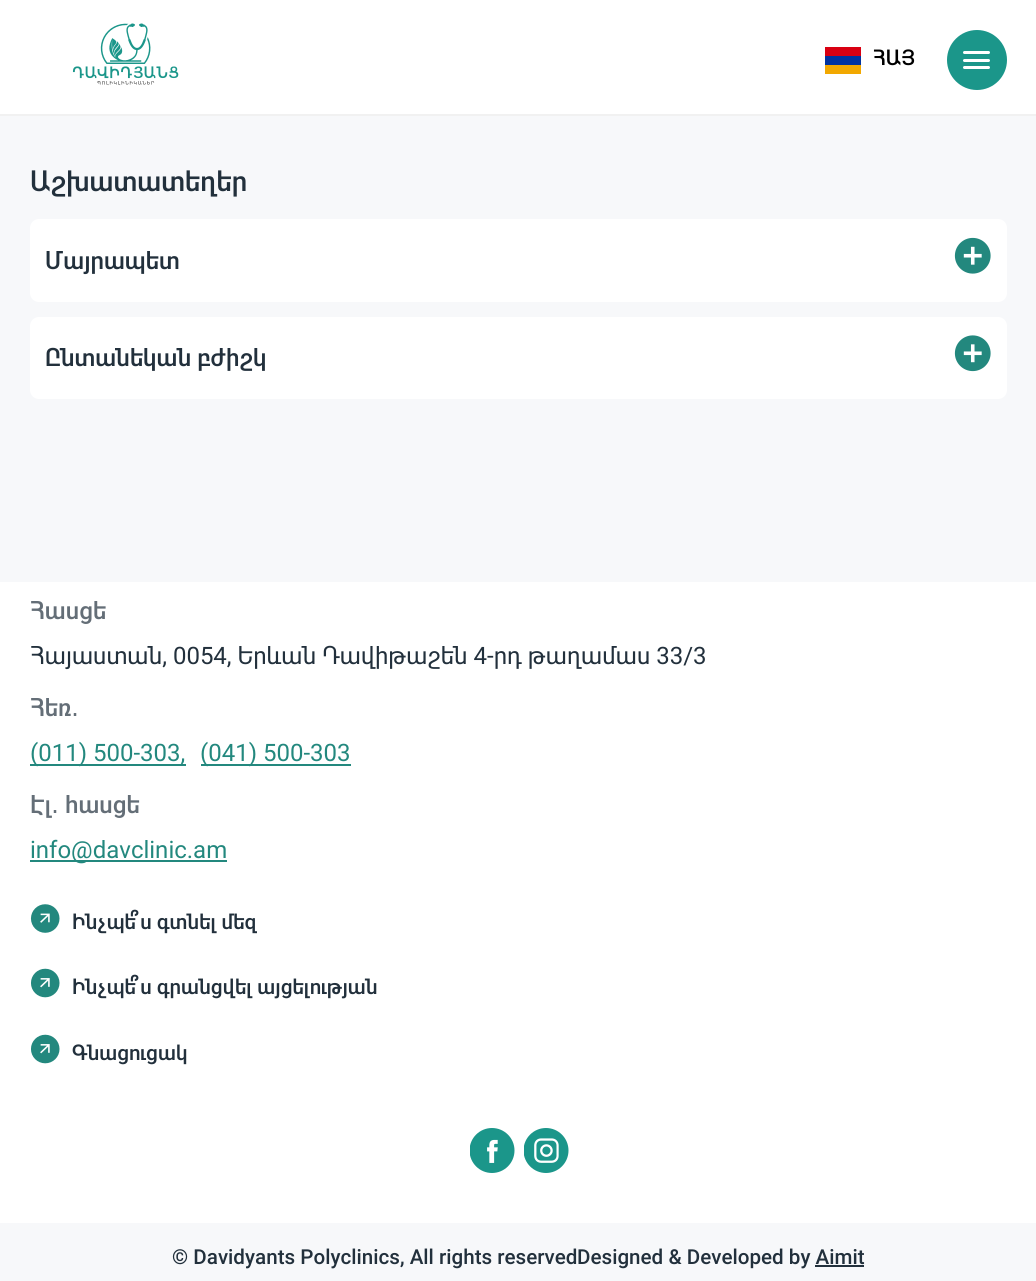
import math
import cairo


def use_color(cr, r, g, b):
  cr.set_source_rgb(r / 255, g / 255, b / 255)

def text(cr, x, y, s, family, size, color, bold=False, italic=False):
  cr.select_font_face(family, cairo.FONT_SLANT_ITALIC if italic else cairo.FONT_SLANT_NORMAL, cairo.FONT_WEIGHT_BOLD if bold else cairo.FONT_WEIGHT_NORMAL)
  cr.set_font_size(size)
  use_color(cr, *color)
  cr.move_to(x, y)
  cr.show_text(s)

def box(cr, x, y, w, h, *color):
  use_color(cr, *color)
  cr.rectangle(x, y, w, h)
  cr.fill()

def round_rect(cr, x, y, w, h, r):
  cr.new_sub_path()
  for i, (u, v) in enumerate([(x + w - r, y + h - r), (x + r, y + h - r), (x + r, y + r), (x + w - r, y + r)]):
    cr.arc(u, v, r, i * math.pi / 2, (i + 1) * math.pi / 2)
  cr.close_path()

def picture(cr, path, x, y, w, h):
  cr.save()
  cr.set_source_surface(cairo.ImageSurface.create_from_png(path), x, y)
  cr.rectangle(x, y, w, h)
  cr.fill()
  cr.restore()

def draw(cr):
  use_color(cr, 247, 248, 250)
  cr.paint()
  box(cr, 0, 0, 1036, 114, 255, 255, 255)
  box(cr, 0, 114, 1036, 2, 241, 241, 241)
  picture(cr, "img_01.png", 72, 23, 107, 63)
  box(cr, 825, 47, 36, 9, 217, 0, 18)
  box(cr, 825, 56, 36, 9, 0, 51, 160)
  box(cr, 825, 65, 36, 9, 242, 168, 0)
  use_color(cr, 27, 150, 138)
  cr.arc(977, 60, 30, 0, 2 * math.pi)
  cr.fill()
  use_color(cr, 255, 255, 255)
  round_rect(cr, 963, 59, 27, 3, 1.5)
  cr.fill()
  round_rect(cr, 963, 51, 27, 3, 1.5)
  cr.fill()
  round_rect(cr, 963, 66, 27, 3, 1.5)
  cr.fill()
  round_rect(cr, 30, 219, 977, 83, 9)
  cr.fill()
  picture(cr, "img_02.png", 954, 237, 37, 37)
  round_rect(cr, 30, 317, 977, 82, 9)
  cr.fill()
  picture(cr, "img_03.png", 954, 335, 37, 37)
  box(cr, 0, 582, 1036, 641, 255, 255, 255)
  box(cr, 30, 764, 156, 2, 35, 136, 126)
  box(cr, 201, 764, 150, 2, 35, 136, 126)
  box(cr, 30, 860, 197, 2, 35, 136, 126)
  picture(cr, "img_04.png", 30, 904, 30, 29)
  picture(cr, "img_05.png", 31, 968, 29, 30)
  picture(cr, "img_05.png", 31, 1034, 29, 30)
  picture(cr, "img_06.png", 470, 1128, 45, 45)
  picture(cr, "img_07.png", 524, 1128, 45, 45)
  box(cr, 815, 1265, 49, 2, 34, 48, 60)
  text(cr, 873, 65, "ՀԱՅ", "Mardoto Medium", 20.6, (0, 0, 0))
  text(cr, 30, 191, "Աշխատատեղեր", "Mardoto Medium", 27.5, (34, 48, 60))
  text(cr, 45, 269, "Մայրապետ", "Mardoto Medium", 24, (34, 48, 60))
  text(cr, 45, 366, "Ընտանեկան բժիշկ", "Mardoto Medium", 24, (34, 48, 60))
  text(cr, 30, 619, "Հասցե", "Mardoto Medium", 24, (100, 110, 119))
  text(cr, 30, 664, "Հայաստան, 0054, Երևան Դավիթաշեն 4-րդ թաղամաս 33/3", "Mardoto", 24, (34, 48, 60))
  text(cr, 30, 716, "Հեռ", "Mardoto Medium", 24, (100, 110, 119))
  text(cr, 71, 716, "․", "DejaVu Sans", 24, (100, 110, 119))
  text(cr, 30, 761, "(011) 500-303,", "Mardoto", 24, (35, 136, 126))
  text(cr, 200, 761, "(041) 500-303", "Mardoto", 24, (35, 136, 126))
  text(cr, 30, 813, "Էլ", "Mardoto Medium", 24, (100, 110, 119))
  text(cr, 51, 813, "․", "DejaVu Sans", 24, (100, 110, 119))
  text(cr, 65, 813, "հասցե", "Mardoto Medium", 24, (100, 110, 119))
  text(cr, 30, 858, "info@davclinic.am", "Mardoto", 24, (35, 136, 126))
  text(cr, 72, 929, "Ինչպե՞ս գտնել մեզ", "Mardoto Medium", 20.6, (34, 48, 60))
  text(cr, 72, 994, "Ինչպե՞ս գրանցվել այցելության", "Mardoto Medium", 20.6, (34, 48, 60))
  text(cr, 72, 1060, "Գնացուցակ", "Mardoto Medium", 20.6, (34, 48, 60))
  text(cr, 172, 1264, "© Davidyants Polyclinics, All rights reserved", "Mardoto Medium", 20.6, (34, 48, 60))
  text(cr, 577, 1264, "Designed & Developed by Aimit", "Mardoto Medium", 20.6, (34, 48, 60))


surface = cairo.ImageSurface(cairo.FORMAT_RGB24, 1036, 1281)
cr = cairo.Context(surface)
options = cairo.FontOptions()
options.set_hint_metrics(cairo.HINT_METRICS_OFF)
options.set_hint_style(cairo.HINT_STYLE_NONE)
cr.set_font_options(options)
cr.set_miter_limit(4)
draw(cr)
surface.write_to_png("out.png")
